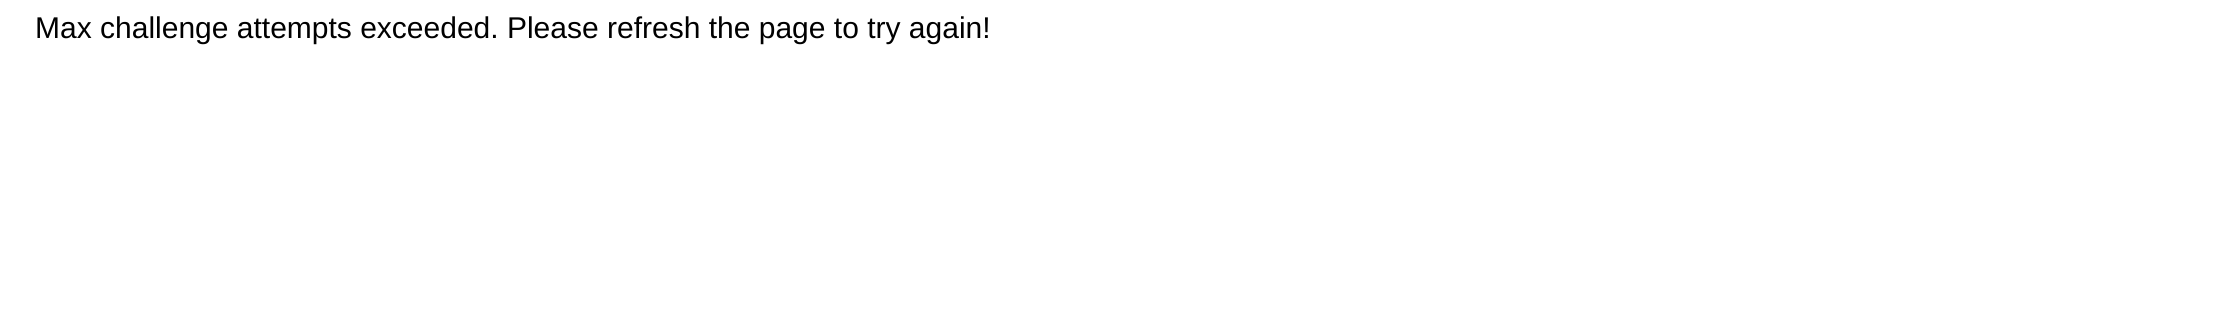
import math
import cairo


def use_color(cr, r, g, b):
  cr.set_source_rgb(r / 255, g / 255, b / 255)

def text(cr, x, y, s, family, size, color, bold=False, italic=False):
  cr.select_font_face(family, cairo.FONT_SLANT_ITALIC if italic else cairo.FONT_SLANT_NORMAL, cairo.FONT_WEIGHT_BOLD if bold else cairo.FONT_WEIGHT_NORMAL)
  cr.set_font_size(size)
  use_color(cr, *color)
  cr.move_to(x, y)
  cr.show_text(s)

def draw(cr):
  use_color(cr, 255, 255, 255)
  cr.paint()
  text(cr, 35, 38, "Max challenge attempts exceeded. Please refresh the page to try again!", "Liberation Sans", 30, (0, 0, 0))


surface = cairo.ImageSurface(cairo.FORMAT_RGB24, 2231, 316)
cr = cairo.Context(surface)
options = cairo.FontOptions()
options.set_hint_metrics(cairo.HINT_METRICS_OFF)
options.set_hint_style(cairo.HINT_STYLE_NONE)
cr.set_font_options(options)
cr.set_miter_limit(4)
draw(cr)
surface.write_to_png("out.png")
